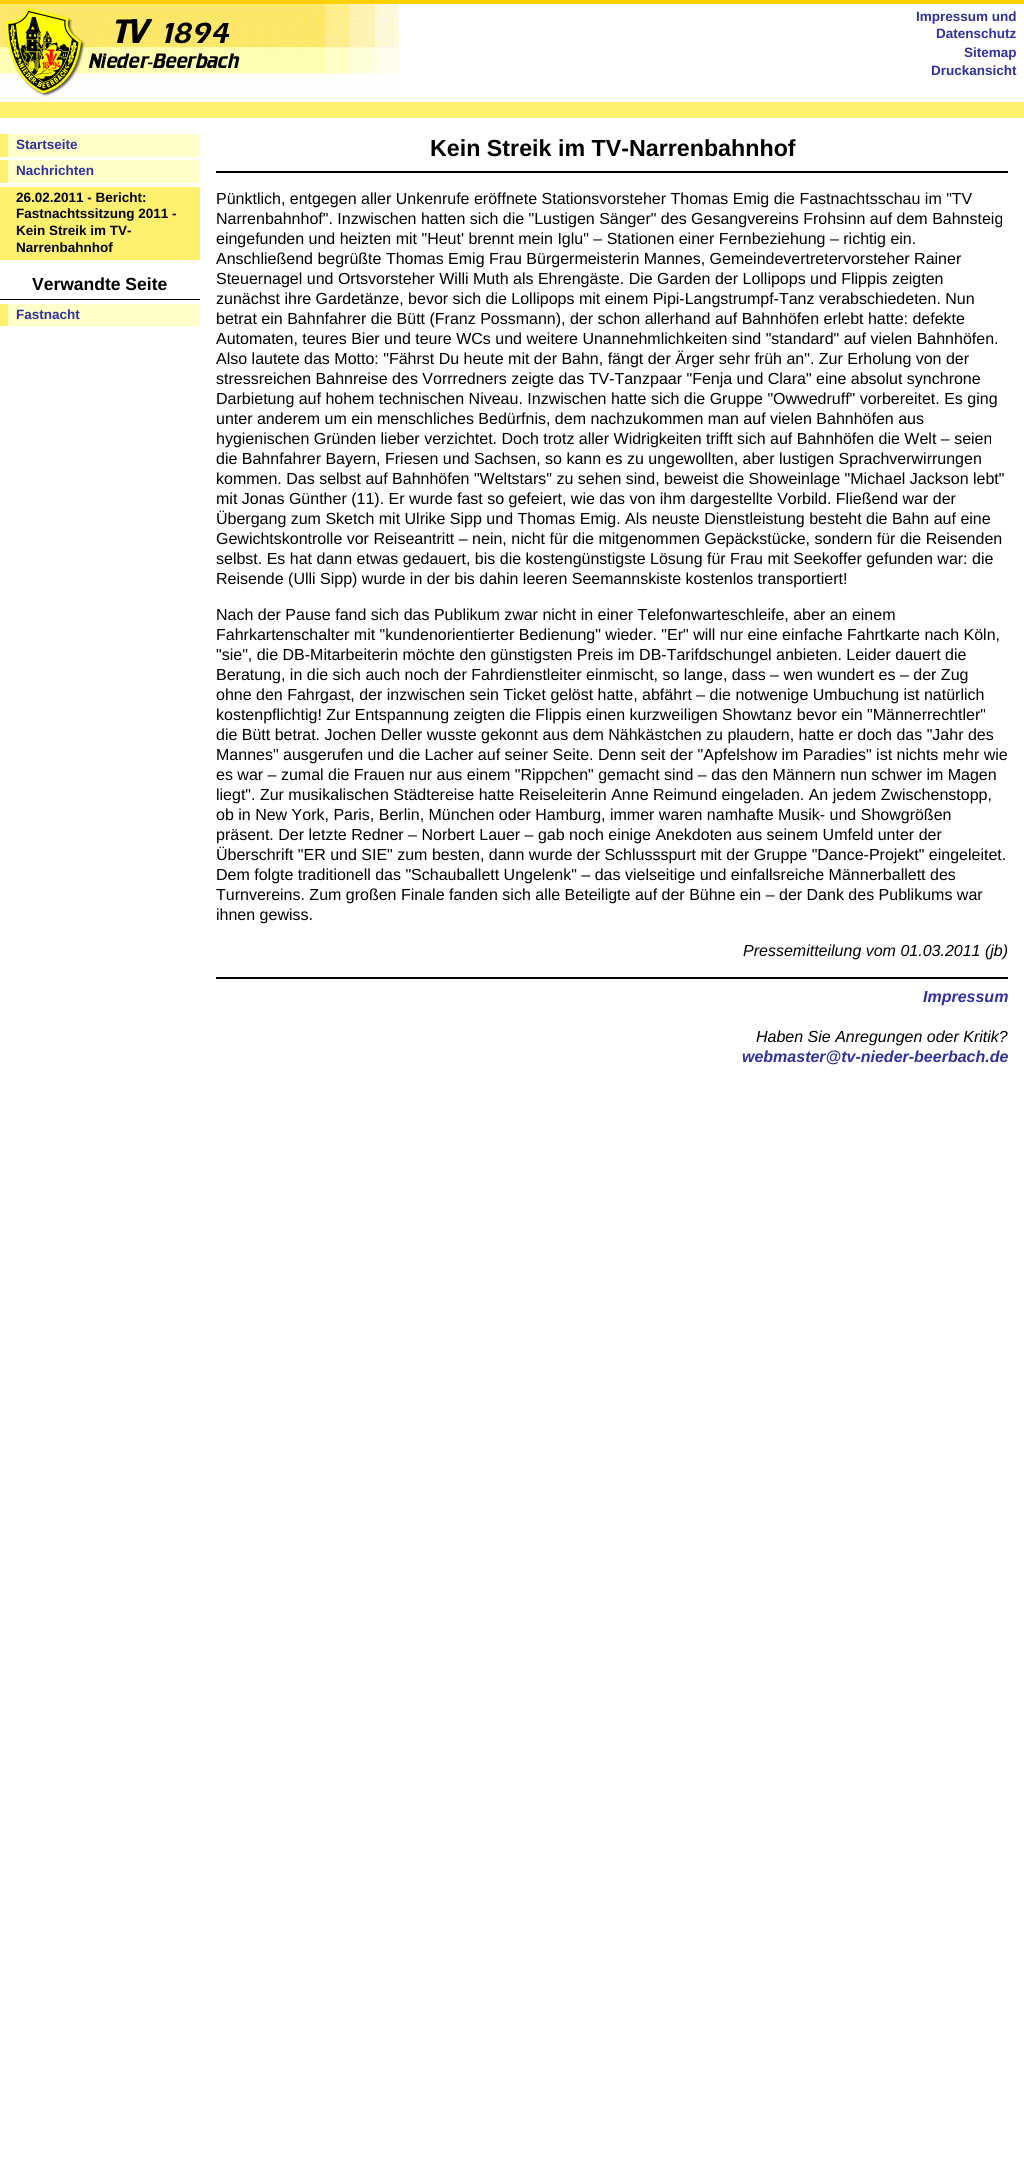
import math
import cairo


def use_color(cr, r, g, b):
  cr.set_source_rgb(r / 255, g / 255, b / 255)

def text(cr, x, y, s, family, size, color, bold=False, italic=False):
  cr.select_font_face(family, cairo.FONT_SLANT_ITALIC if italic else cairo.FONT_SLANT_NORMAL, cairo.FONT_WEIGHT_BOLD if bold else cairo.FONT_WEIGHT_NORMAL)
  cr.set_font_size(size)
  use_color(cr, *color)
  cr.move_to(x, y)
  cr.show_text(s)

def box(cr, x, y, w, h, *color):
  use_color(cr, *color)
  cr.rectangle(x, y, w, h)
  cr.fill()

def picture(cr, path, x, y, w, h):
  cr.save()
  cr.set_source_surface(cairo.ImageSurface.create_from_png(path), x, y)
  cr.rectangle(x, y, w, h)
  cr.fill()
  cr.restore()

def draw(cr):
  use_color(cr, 255, 255, 255)
  cr.paint()
  box(cr, 0, 0, 1024, 4, 255, 208, 0)
  box(cr, 0, 102, 1024, 16, 255, 240, 112)
  picture(cr, "img_01.png", 0, 4, 399, 93)
  box(cr, 8, 134, 192, 23, 255, 255, 202)
  box(cr, 0, 134, 8, 23, 255, 240, 112)
  box(cr, 8, 160, 192, 23, 255, 255, 202)
  box(cr, 0, 160, 8, 23, 255, 240, 112)
  box(cr, 0, 187, 200, 73, 255, 240, 112)
  box(cr, 0, 299, 200, 1, 0, 0, 0)
  box(cr, 8, 304, 192, 22, 255, 255, 202)
  box(cr, 0, 304, 8, 22, 255, 240, 112)
  box(cr, 216, 171, 792, 2, 0, 0, 0)
  box(cr, 216, 977, 792, 2, 0, 0, 0)
  text(cr, 916, 21, "Impressum und", "Liberation Sans", 13.5, (48, 48, 160), bold=True)
  text(cr, 936, 38, "Datenschutz", "Liberation Sans", 13.5, (48, 48, 160), bold=True)
  text(cr, 964, 57, "Sitemap", "Liberation Sans", 13.5, (48, 48, 160), bold=True)
  text(cr, 931, 75, "Druckansicht", "Liberation Sans", 13.5, (48, 48, 160), bold=True)
  text(cr, 16, 149, "Startseite", "Liberation Sans", 13.5, (48, 48, 160), bold=True)
  text(cr, 16, 175, "Nachrichten", "Liberation Sans", 13.5, (48, 48, 160), bold=True)
  text(cr, 16, 202, "26.02.2011 - Bericht:", "Liberation Sans", 13.5, (0, 0, 0), bold=True)
  text(cr, 16, 218, "Fastnachtssitzung 2011 -", "Liberation Sans", 13.5, (0, 0, 0), bold=True)
  text(cr, 16, 235, "Kein Streik im TV-", "Liberation Sans", 13.5, (0, 0, 0), bold=True)
  text(cr, 16, 252, "Narrenbahnhof", "Liberation Sans", 13.5, (0, 0, 0), bold=True)
  text(cr, 32, 290, "Verwandte Seite", "Liberation Sans", 17.5, (0, 0, 0), bold=True)
  text(cr, 16, 319, "Fastnacht", "Liberation Sans", 13.5, (48, 48, 160), bold=True)
  text(cr, 430, 156, "Kein Streik im TV-Narrenbahnhof", "Liberation Sans", 23.25, (0, 0, 0), bold=True)
  text(cr, 216, 204, "Pünktlich, entgegen aller Unkenrufe eröffnete Stationsvorsteher Thomas Emig die Fastnachtsschau im \"TV", "Liberation Sans", 16, (0, 0, 0))
  text(cr, 216, 224, "Narrenbahnhof\". Inzwischen hatten sich die \"Lustigen Sänger\" des Gesangvereins Frohsinn auf dem Bahnsteig", "Liberation Sans", 16, (0, 0, 0))
  text(cr, 216, 244, "eingefunden und heizten mit \"Heut' brennt mein Iglu\" – Stationen einer Fernbeziehung – richtig ein.", "Liberation Sans", 16, (0, 0, 0))
  text(cr, 216, 264, "Anschließend begrüßte Thomas Emig Frau Bürgermeisterin Mannes, Gemeindevertretervorsteher Rainer", "Liberation Sans", 16, (0, 0, 0))
  text(cr, 216, 284, "Steuernagel und Ortsvorsteher Willi Muth als Ehrengäste. Die Garden der Lollipops und Flippis zeigten", "Liberation Sans", 16, (0, 0, 0))
  text(cr, 216, 304, "zunächst ihre Gardetänze, bevor sich die Lollipops mit einem Pipi-Langstrumpf-Tanz verabschiedeten. Nun", "Liberation Sans", 16, (0, 0, 0))
  text(cr, 216, 324, "betrat ein Bahnfahrer die Bütt (Franz Possmann), der schon allerhand auf Bahnhöfen erlebt hatte: defekte", "Liberation Sans", 16, (0, 0, 0))
  text(cr, 216, 344, "Automaten, teures Bier und teure WCs und weitere Unannehmlichkeiten sind \"standard\" auf vielen Bahnhöfen.", "Liberation Sans", 16, (0, 0, 0))
  text(cr, 216, 364, "Also lautete das Motto: \"Fährst Du heute mit der Bahn, fängt der Ärger sehr früh an\". Zur Erholung von der", "Liberation Sans", 16, (0, 0, 0))
  text(cr, 216, 384, "stressreichen Bahnreise des Vorrredners zeigte das TV-Tanzpaar \"Fenja und Clara\" eine absolut synchrone", "Liberation Sans", 16, (0, 0, 0))
  text(cr, 216, 404, "Darbietung auf hohem technischen Niveau. Inzwischen hatte sich die Gruppe \"Owwedruff\" vorbereitet. Es ging", "Liberation Sans", 16, (0, 0, 0))
  text(cr, 216, 424, "unter anderem um ein menschliches Bedürfnis, dem nachzukommen man auf vielen Bahnhöfen aus", "Liberation Sans", 16, (0, 0, 0))
  text(cr, 216, 444, "hygienischen Gründen lieber verzichtet. Doch trotz aller Widrigkeiten trifft sich auf Bahnhöfen die Welt – seien", "Liberation Sans", 16, (0, 0, 0))
  text(cr, 216, 464, "die Bahnfahrer Bayern, Friesen und Sachsen, so kann es zu ungewollten, aber lustigen Sprachverwirrungen", "Liberation Sans", 16, (0, 0, 0))
  text(cr, 216, 484, "kommen. Das selbst auf Bahnhöfen \"Weltstars\" zu sehen sind, beweist die Showeinlage \"Michael Jackson lebt\"", "Liberation Sans", 16, (0, 0, 0))
  text(cr, 216, 504, "mit Jonas Günther (11). Er wurde fast so gefeiert, wie das von ihm dargestellte Vorbild. Fließend war der", "Liberation Sans", 16, (0, 0, 0))
  text(cr, 216, 524, "Übergang zum Sketch mit Ulrike Sipp und Thomas Emig. Als neuste Dienstleistung besteht die Bahn auf eine", "Liberation Sans", 16, (0, 0, 0))
  text(cr, 216, 544, "Gewichtskontrolle vor Reiseantritt – nein, nicht für die mitgenommen Gepäckstücke, sondern für die Reisenden", "Liberation Sans", 16, (0, 0, 0))
  text(cr, 216, 564, "selbst. Es hat dann etwas gedauert, bis die kostengünstigste Lösung für Frau mit Seekoffer gefunden war: die", "Liberation Sans", 16, (0, 0, 0))
  text(cr, 216, 584, "Reisende (Ulli Sipp) wurde in der bis dahin leeren Seemannskiste kostenlos transportiert!", "Liberation Sans", 16, (0, 0, 0))
  text(cr, 216, 620, "Nach der Pause fand sich das Publikum zwar nicht in einer Telefonwarteschleife, aber an einem", "Liberation Sans", 16, (0, 0, 0))
  text(cr, 216, 640, "Fahrkartenschalter mit \"kundenorientierter Bedienung\" wieder. \"Er\" will nur eine einfache Fahrtkarte nach Köln,", "Liberation Sans", 16, (0, 0, 0))
  text(cr, 216, 660, "\"sie\", die DB-Mitarbeiterin möchte den günstigsten Preis im DB-Tarifdschungel anbieten. Leider dauert die", "Liberation Sans", 16, (0, 0, 0))
  text(cr, 216, 680, "Beratung, in die sich auch noch der Fahrdienstleiter einmischt, so lange, dass – wen wundert es – der Zug", "Liberation Sans", 16, (0, 0, 0))
  text(cr, 216, 700, "ohne den Fahrgast, der inzwischen sein Ticket gelöst hatte, abfährt – die notwenige Umbuchung ist natürlich", "Liberation Sans", 16, (0, 0, 0))
  text(cr, 216, 720, "kostenpflichtig! Zur Entspannung zeigten die Flippis einen kurzweiligen Showtanz bevor ein \"Männerrechtler\"", "Liberation Sans", 16, (0, 0, 0))
  text(cr, 216, 740, "die Bütt betrat. Jochen Deller wusste gekonnt aus dem Nähkästchen zu plaudern, hatte er doch das \"Jahr des", "Liberation Sans", 16, (0, 0, 0))
  text(cr, 216, 760, "Mannes\" ausgerufen und die Lacher auf seiner Seite. Denn seit der \"Apfelshow im Paradies\" ist nichts mehr wie", "Liberation Sans", 16, (0, 0, 0))
  text(cr, 216, 780, "es war – zumal die Frauen nur aus einem \"Rippchen\" gemacht sind – das den Männern nun schwer im Magen", "Liberation Sans", 16, (0, 0, 0))
  text(cr, 216, 800, "liegt\". Zur musikalischen Städtereise hatte Reiseleiterin Anne Reimund eingeladen. An jedem Zwischenstopp,", "Liberation Sans", 16, (0, 0, 0))
  text(cr, 216, 820, "ob in New York, Paris, Berlin, München oder Hamburg, immer waren namhafte Musik- und Showgrößen", "Liberation Sans", 16, (0, 0, 0))
  text(cr, 216, 840, "präsent. Der letzte Redner – Norbert Lauer – gab noch einige Anekdoten aus seinem Umfeld unter der", "Liberation Sans", 16, (0, 0, 0))
  text(cr, 216, 860, "Überschrift \"ER und SIE\" zum besten, dann wurde der Schlussspurt mit der Gruppe \"Dance-Projekt\" eingeleitet.", "Liberation Sans", 16, (0, 0, 0))
  text(cr, 216, 880, "Dem folgte traditionell das \"Schauballett Ungelenk\" – das vielseitige und einfallsreiche Männerballett des", "Liberation Sans", 16, (0, 0, 0))
  text(cr, 216, 900, "Turnvereins. Zum großen Finale fanden sich alle Beteiligte auf der Bühne ein – der Dank des Publikums war", "Liberation Sans", 16, (0, 0, 0))
  text(cr, 216, 920, "ihnen gewiss.", "Liberation Sans", 16, (0, 0, 0))
  text(cr, 743, 956, "Pressemitteilung vom 01.03.2011 (jb)", "Liberation Sans", 16, (0, 0, 0), italic=True)
  text(cr, 923, 1002, "Impressum", "Liberation Sans", 16, (48, 48, 160), bold=True, italic=True)
  text(cr, 756, 1042, "Haben Sie Anregungen oder Kritik?", "Liberation Sans", 16, (0, 0, 0), italic=True)
  text(cr, 742, 1062, "webmaster@tv-nieder-beerbach.de", "Liberation Sans", 16, (48, 48, 160), bold=True, italic=True)


surface = cairo.ImageSurface(cairo.FORMAT_RGB24, 1024, 2175)
cr = cairo.Context(surface)
options = cairo.FontOptions()
options.set_hint_metrics(cairo.HINT_METRICS_OFF)
options.set_hint_style(cairo.HINT_STYLE_NONE)
cr.set_font_options(options)
cr.set_miter_limit(4)
draw(cr)
surface.write_to_png("out.png")
